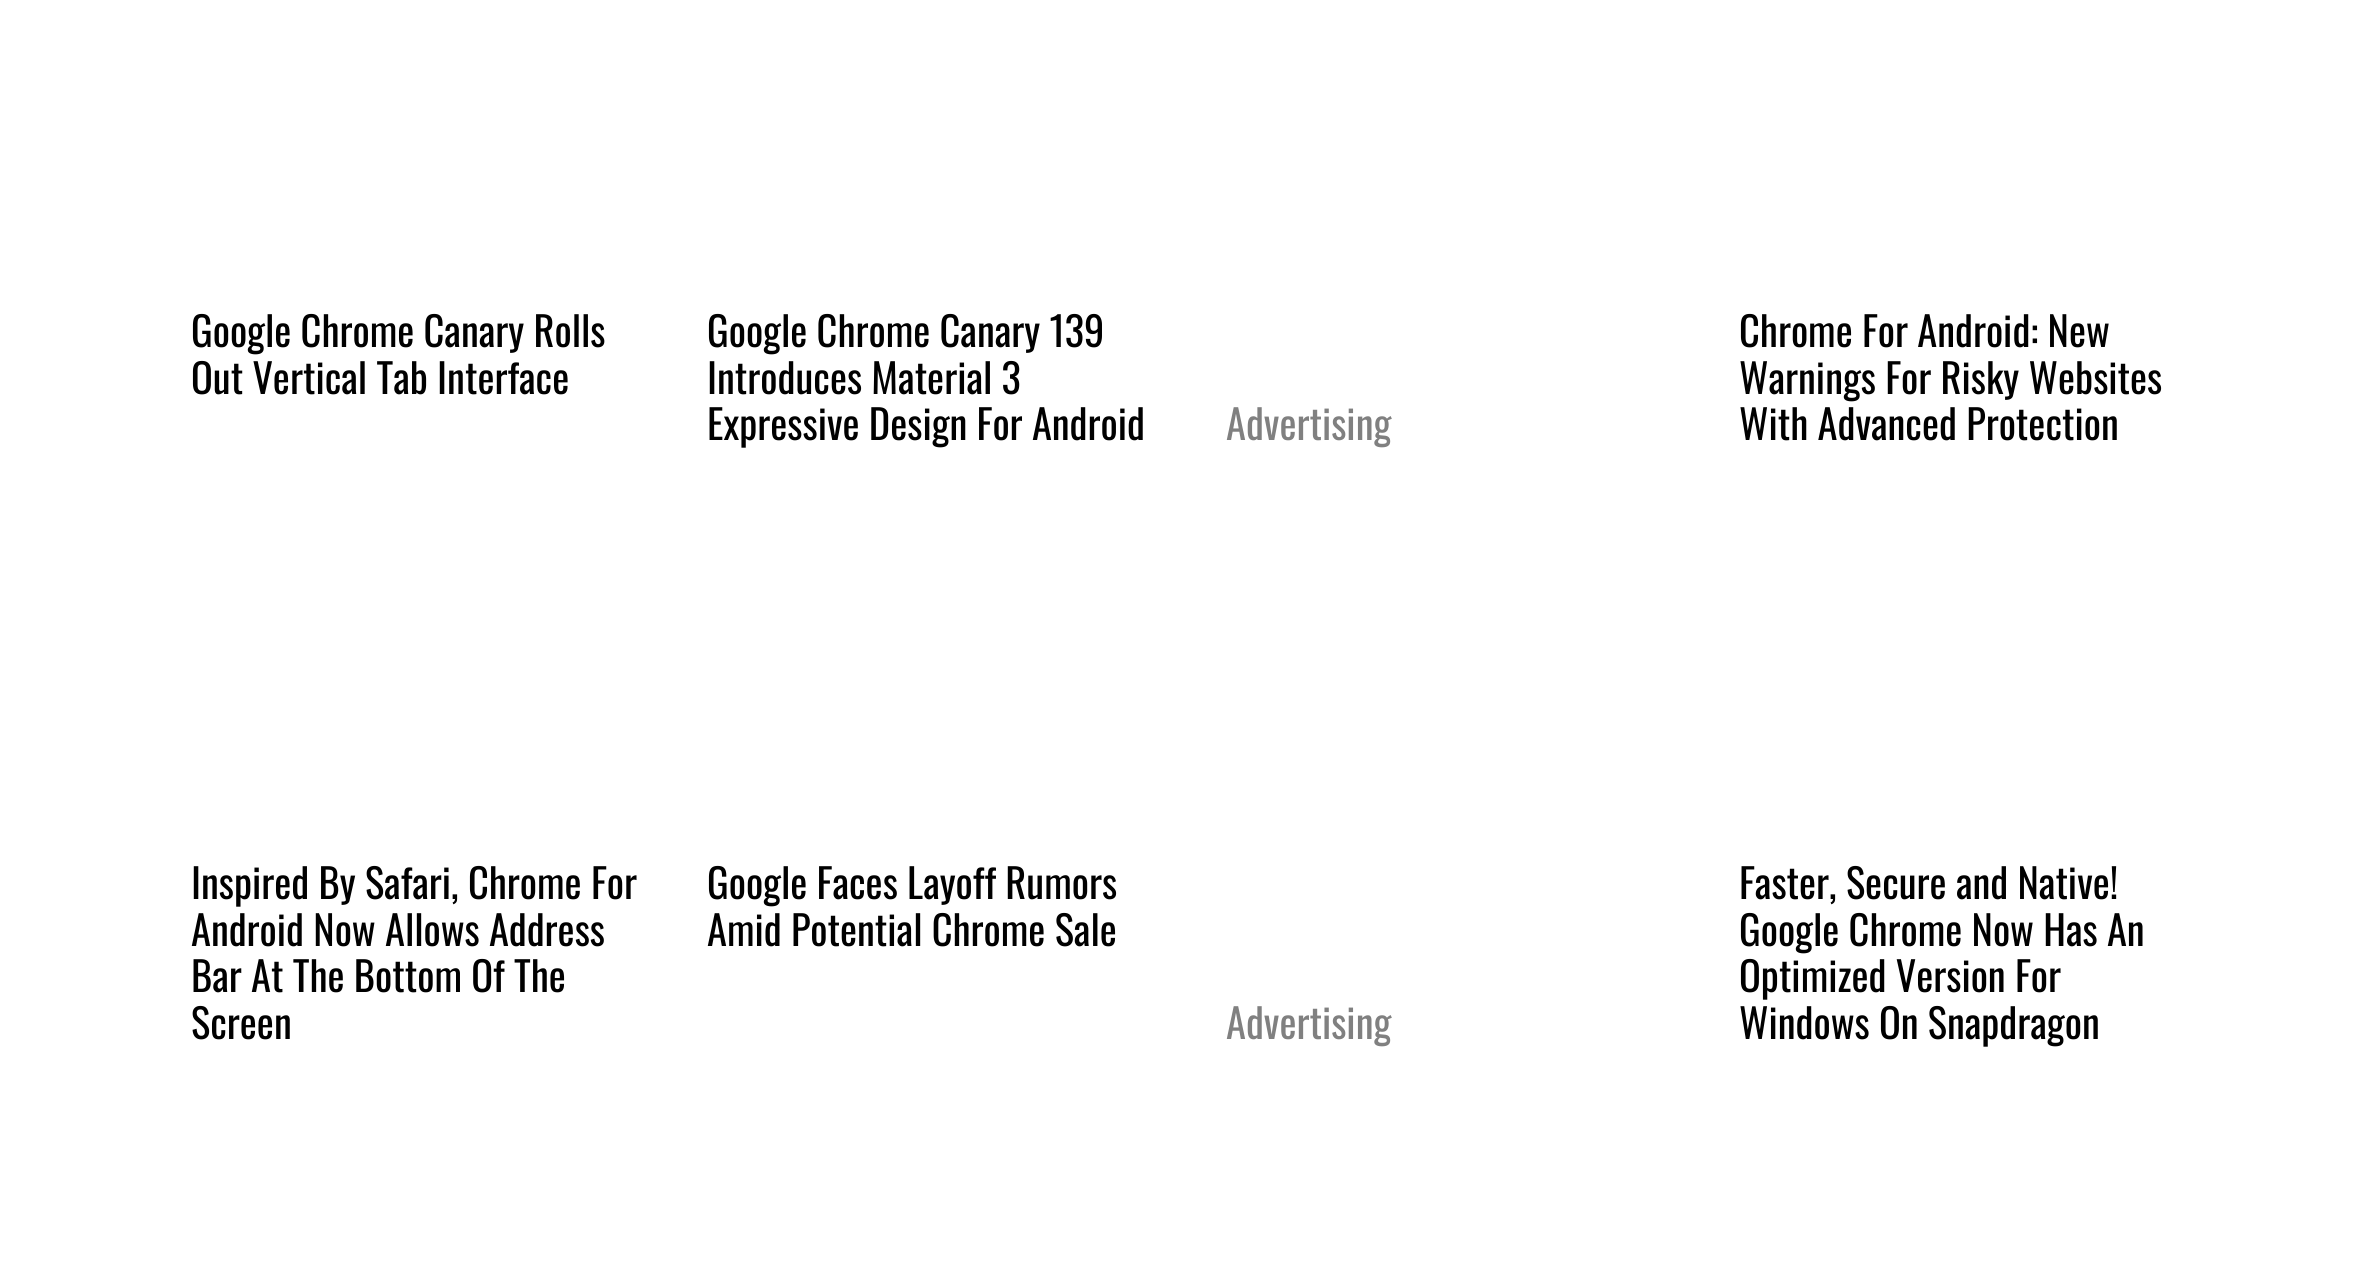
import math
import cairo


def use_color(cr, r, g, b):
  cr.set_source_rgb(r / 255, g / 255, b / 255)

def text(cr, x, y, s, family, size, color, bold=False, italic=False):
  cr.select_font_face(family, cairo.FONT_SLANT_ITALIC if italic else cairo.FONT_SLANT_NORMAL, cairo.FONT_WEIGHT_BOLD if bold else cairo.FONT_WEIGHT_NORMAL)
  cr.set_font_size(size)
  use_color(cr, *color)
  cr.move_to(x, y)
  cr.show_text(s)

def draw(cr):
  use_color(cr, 255, 255, 255)
  cr.paint()
  text(cr, 191, 347, "Google Chrome Canary Rolls", "Oswald", 40.5, (0, 0, 0))
  text(cr, 191, 394, "Out Vertical Tab Interface", "Oswald", 40.5, (0, 0, 0))
  text(cr, 707, 347, "Google Chrome Canary 139", "Oswald", 40.5, (0, 0, 0))
  text(cr, 707, 394, "Introduces Material 3", "Oswald", 40.5, (0, 0, 0))
  text(cr, 707, 440, "Expressive Design For Android", "Oswald", 40.5, (0, 0, 0))
  text(cr, 1226, 440, "Advertising", "Oswald", 40.5, (128, 128, 128))
  text(cr, 1739, 347, "Chrome For Android: New", "Oswald", 40.5, (0, 0, 0))
  text(cr, 1739, 394, "Warnings For Risky Websites", "Oswald", 40.5, (0, 0, 0))
  text(cr, 1739, 440, "With Advanced Protection", "Oswald", 40.5, (0, 0, 0))
  text(cr, 191, 899, "Inspired By Safari, Chrome For", "Oswald", 40.5, (0, 0, 0))
  text(cr, 191, 946, "Android Now Allows Address", "Oswald", 40.5, (0, 0, 0))
  text(cr, 191, 992, "Bar At The Bottom Of The", "Oswald", 40.5, (0, 0, 0))
  text(cr, 191, 1039, "Screen", "Oswald", 40.5, (0, 0, 0))
  text(cr, 707, 899, "Google Faces Layoff Rumors", "Oswald", 40.5, (0, 0, 0))
  text(cr, 707, 946, "Amid Potential Chrome Sale", "Oswald", 40.5, (0, 0, 0))
  text(cr, 1226, 1039, "Advertising", "Oswald", 40.5, (128, 128, 128))
  text(cr, 1739, 899, "Faster, Secure and Native!", "Oswald", 40.5, (0, 0, 0))
  text(cr, 1739, 946, "Google Chrome Now Has An", "Oswald", 40.5, (0, 0, 0))
  text(cr, 1739, 992, "Optimized Version For", "Oswald", 40.5, (0, 0, 0))
  text(cr, 1739, 1039, "Windows On Snapdragon", "Oswald", 40.5, (0, 0, 0))


surface = cairo.ImageSurface(cairo.FORMAT_RGB24, 2379, 1270)
cr = cairo.Context(surface)
options = cairo.FontOptions()
options.set_hint_metrics(cairo.HINT_METRICS_OFF)
options.set_hint_style(cairo.HINT_STYLE_NONE)
cr.set_font_options(options)
cr.set_miter_limit(4)
draw(cr)
surface.write_to_png("out.png")
